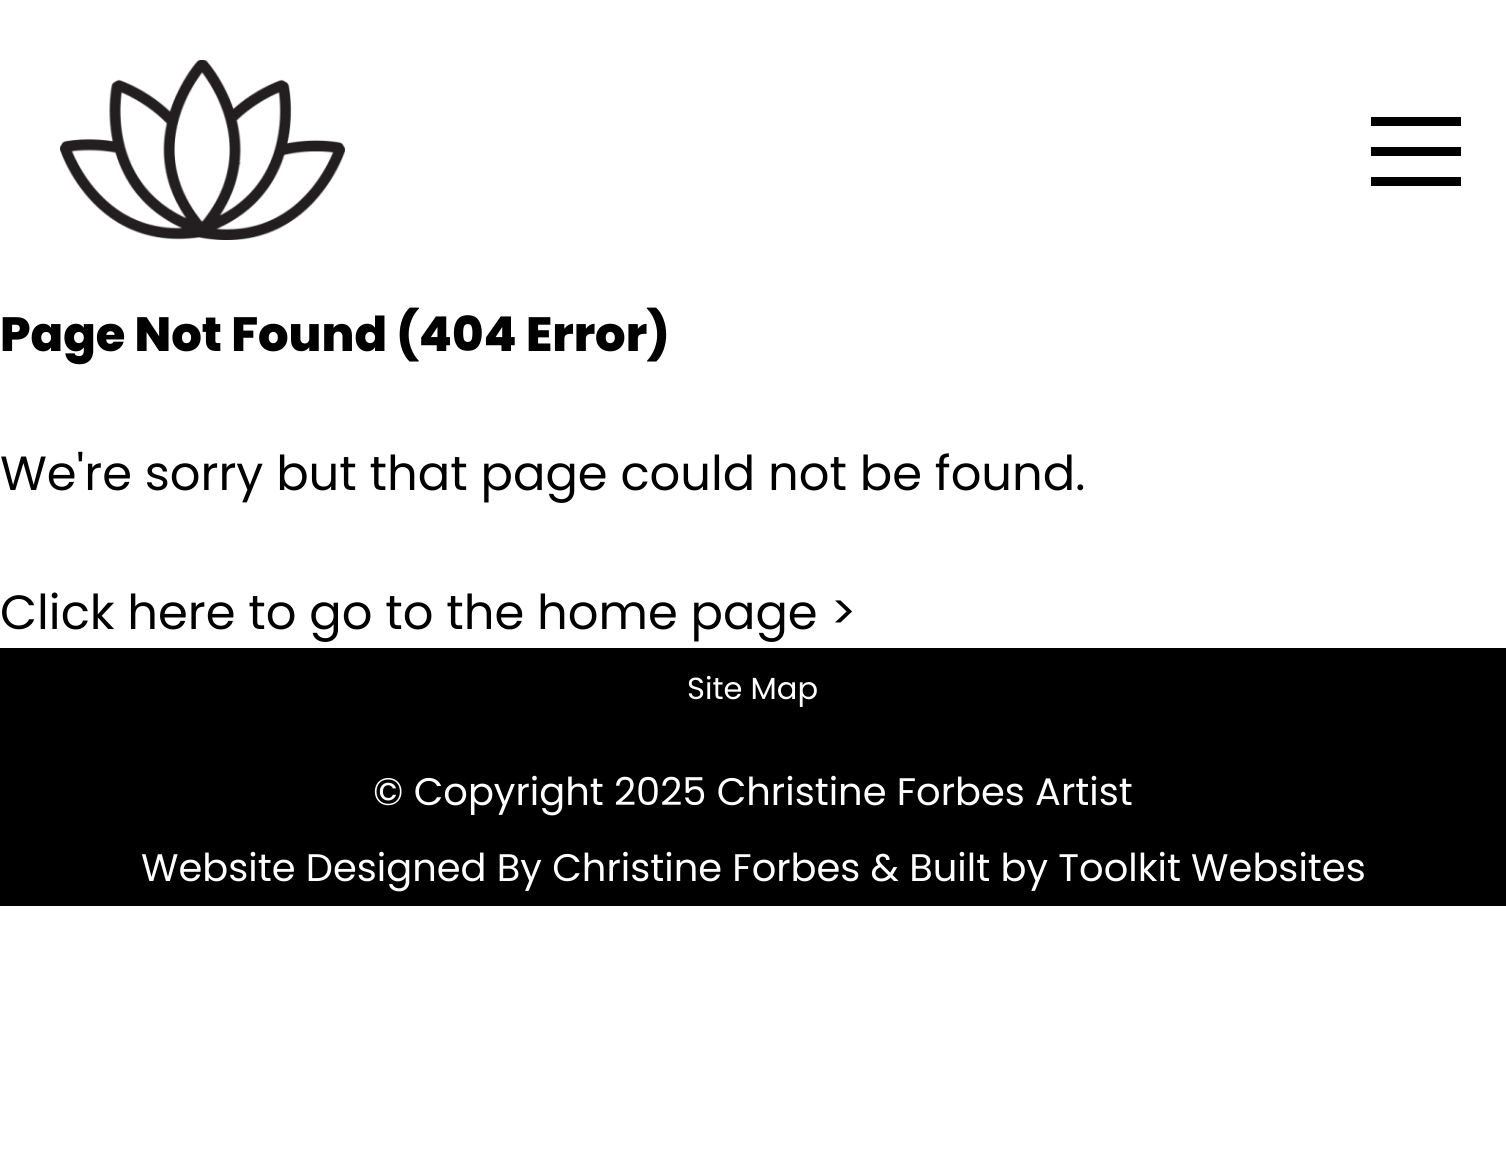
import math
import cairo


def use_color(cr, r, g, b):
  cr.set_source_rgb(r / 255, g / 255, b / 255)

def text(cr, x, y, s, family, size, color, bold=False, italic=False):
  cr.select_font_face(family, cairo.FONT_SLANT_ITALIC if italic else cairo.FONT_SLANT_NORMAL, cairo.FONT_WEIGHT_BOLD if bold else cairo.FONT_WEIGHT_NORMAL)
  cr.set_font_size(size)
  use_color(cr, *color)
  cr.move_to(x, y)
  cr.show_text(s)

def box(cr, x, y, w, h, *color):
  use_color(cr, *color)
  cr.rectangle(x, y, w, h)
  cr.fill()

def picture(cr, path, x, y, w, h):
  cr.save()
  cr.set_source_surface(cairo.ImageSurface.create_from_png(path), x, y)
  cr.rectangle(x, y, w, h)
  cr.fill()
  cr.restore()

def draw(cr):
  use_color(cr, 255, 255, 255)
  cr.paint()
  picture(cr, "img_01.png", 60, 60, 285, 180)
  box(cr, 1371, 117, 90, 9, 0, 0, 0)
  box(cr, 1371, 147, 90, 9, 0, 0, 0)
  box(cr, 1371, 177, 90, 9, 0, 0, 0)
  box(cr, 0, 648, 1506, 258, 0, 0, 0)
  text(cr, 0, 351, "Page Not Found (404 Error)", "Poppins ExtraBold", 48, (0, 0, 0))
  text(cr, 0, 490, "We're sorry but that page could not be found.", "Poppins", 48, (0, 0, 0))
  text(cr, 0, 629, "Click here to go to the home page >", "Poppins", 48, (0, 0, 0))
  text(cr, 687, 699, "Site Map", "Poppins", 30.5, (255, 255, 255))
  text(cr, 373, 805, "© Copyright 2025 Christine Forbes Artist", "Poppins", 38.4, (255, 255, 255))
  text(cr, 141, 881, "Website Designed By Christine Forbes & Built by Toolkit Websites", "Poppins", 38.4, (255, 255, 255))


surface = cairo.ImageSurface(cairo.FORMAT_RGB24, 1506, 1164)
cr = cairo.Context(surface)
options = cairo.FontOptions()
options.set_hint_metrics(cairo.HINT_METRICS_OFF)
options.set_hint_style(cairo.HINT_STYLE_NONE)
cr.set_font_options(options)
cr.set_miter_limit(4)
draw(cr)
surface.write_to_png("out.png")
